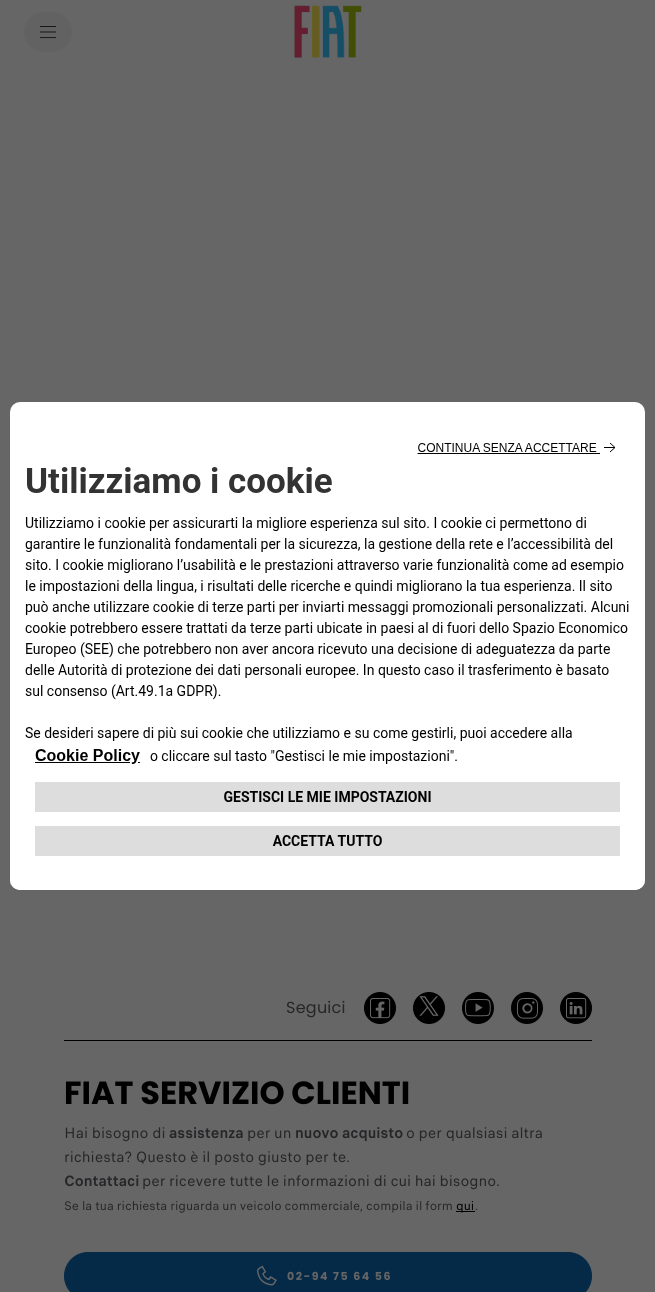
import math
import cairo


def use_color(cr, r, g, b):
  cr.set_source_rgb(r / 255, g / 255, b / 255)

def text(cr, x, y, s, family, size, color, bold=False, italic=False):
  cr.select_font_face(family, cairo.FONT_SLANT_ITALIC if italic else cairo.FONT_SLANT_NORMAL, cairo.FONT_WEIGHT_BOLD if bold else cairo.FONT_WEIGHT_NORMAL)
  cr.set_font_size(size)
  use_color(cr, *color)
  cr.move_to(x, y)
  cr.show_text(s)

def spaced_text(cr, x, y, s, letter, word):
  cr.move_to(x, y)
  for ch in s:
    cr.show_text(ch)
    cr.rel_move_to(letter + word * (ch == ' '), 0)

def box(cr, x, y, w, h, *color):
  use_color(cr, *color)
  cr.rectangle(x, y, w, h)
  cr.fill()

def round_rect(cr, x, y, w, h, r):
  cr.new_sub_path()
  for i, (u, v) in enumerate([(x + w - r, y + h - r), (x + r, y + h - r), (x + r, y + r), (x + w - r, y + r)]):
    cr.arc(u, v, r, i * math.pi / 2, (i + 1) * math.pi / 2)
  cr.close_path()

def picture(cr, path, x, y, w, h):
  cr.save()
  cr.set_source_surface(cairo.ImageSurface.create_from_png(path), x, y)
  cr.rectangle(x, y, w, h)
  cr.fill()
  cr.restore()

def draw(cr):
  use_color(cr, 255, 255, 255)
  cr.paint()
  use_color(cr, 244, 244, 244)
  round_rect(cr, 24, 12, 48, 40, 20)
  cr.fill()
  picture(cr, "img_02.png", 40, 26, 16, 13)
  picture(cr, "img_03.png", 294, 5, 68, 53)
  box(cr, 64, 1040, 528, 1, 0, 0, 0)
  cr.arc(380, 1008, 16, 0, 2 * math.pi)
  cr.fill()
  picture(cr, "img_04.png", 370, 998, 21, 21)
  cr.arc(429, 1008, 16, 0, 2 * math.pi)
  cr.fill()
  picture(cr, "img_05.png", 419, 996, 20, 20)
  cr.arc(478, 1008, 16, 0, 2 * math.pi)
  cr.fill()
  picture(cr, "img_06.png", 465, 999, 26, 18)
  cr.arc(527, 1008, 16, 0, 2 * math.pi)
  cr.fill()
  picture(cr, "img_07.png", 517, 998, 21, 21)
  cr.arc(576, 1008, 16, 0, 2 * math.pi)
  cr.fill()
  picture(cr, "img_08.png", 566, 998, 21, 21)
  box(cr, 456, 1211, 19, 1, 0, 0, 0)
  use_color(cr, 13, 104, 177)
  round_rect(cr, 64.5, 1252.5, 527, 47, 23.5)
  cr.fill_preserve()
  cr.set_line_width(1)
  cr.stroke()
  picture(cr, "img_09.png", 257, 1265, 20, 21)
  cr.select_font_face("Poppins")
  cr.set_font_size(16)
  use_color(cr, 93, 94, 101)
  spaced_text(cr, 286, 1013, "Seguici", 0.25, 0)
  text(cr, 64, 1104, "FIAT SERVIZIO CLIENTI", "Poppins", 32, (0, 0, 0), bold=True)
  text(cr, 64, 1138, "Hai bisogno di", "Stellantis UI", 16, (93, 94, 101))
  text(cr, 169, 1138, "assistenza", "Stellantis UI", 16, (93, 94, 101), bold=True)
  text(cr, 247, 1138, "per un", "Stellantis UI", 16, (93, 94, 101))
  text(cr, 295, 1138, "nuovo acquisto", "Stellantis UI", 16, (93, 94, 101), bold=True)
  text(cr, 406, 1138, "o per qualsiasi altra", "Stellantis UI", 16, (93, 94, 101))
  text(cr, 64, 1162, "richiesta? Questo è il posto giusto per te.", "Stellantis UI", 16, (93, 94, 101))
  text(cr, 64, 1186, "Contattaci", "Stellantis UI", 16, (93, 94, 101), bold=True)
  text(cr, 142, 1186, "per ricevere tutte le informazioni di cui hai bisogno.", "Stellantis UI", 16, (93, 94, 101))
  text(cr, 64, 1210, "Se la tua richiesta riguarda un veicolo commerciale, compila il form", "Stellantis UI", 13.3, (93, 94, 101))
  text(cr, 456, 1210, "qui", "Stellantis UI", 13.3, (0, 0, 0))
  text(cr, 475, 1210, ".", "Stellantis UI", 13.3, (93, 94, 101))
  cr.select_font_face("Poppins", cairo.FONT_SLANT_NORMAL, cairo.FONT_WEIGHT_BOLD)
  cr.set_font_size(11)
  use_color(cr, 255, 255, 255)
  spaced_text(cr, 287, 1280, "02-94 75 64 56", 1.6, 0)
  picture(cr, "img_01.png", 0, 0, 655, 1292)


surface = cairo.ImageSurface(cairo.FORMAT_RGB24, 655, 1292)
cr = cairo.Context(surface)
options = cairo.FontOptions()
options.set_hint_metrics(cairo.HINT_METRICS_OFF)
options.set_hint_style(cairo.HINT_STYLE_NONE)
cr.set_font_options(options)
cr.set_miter_limit(4)
draw(cr)
surface.write_to_png("out.png")
